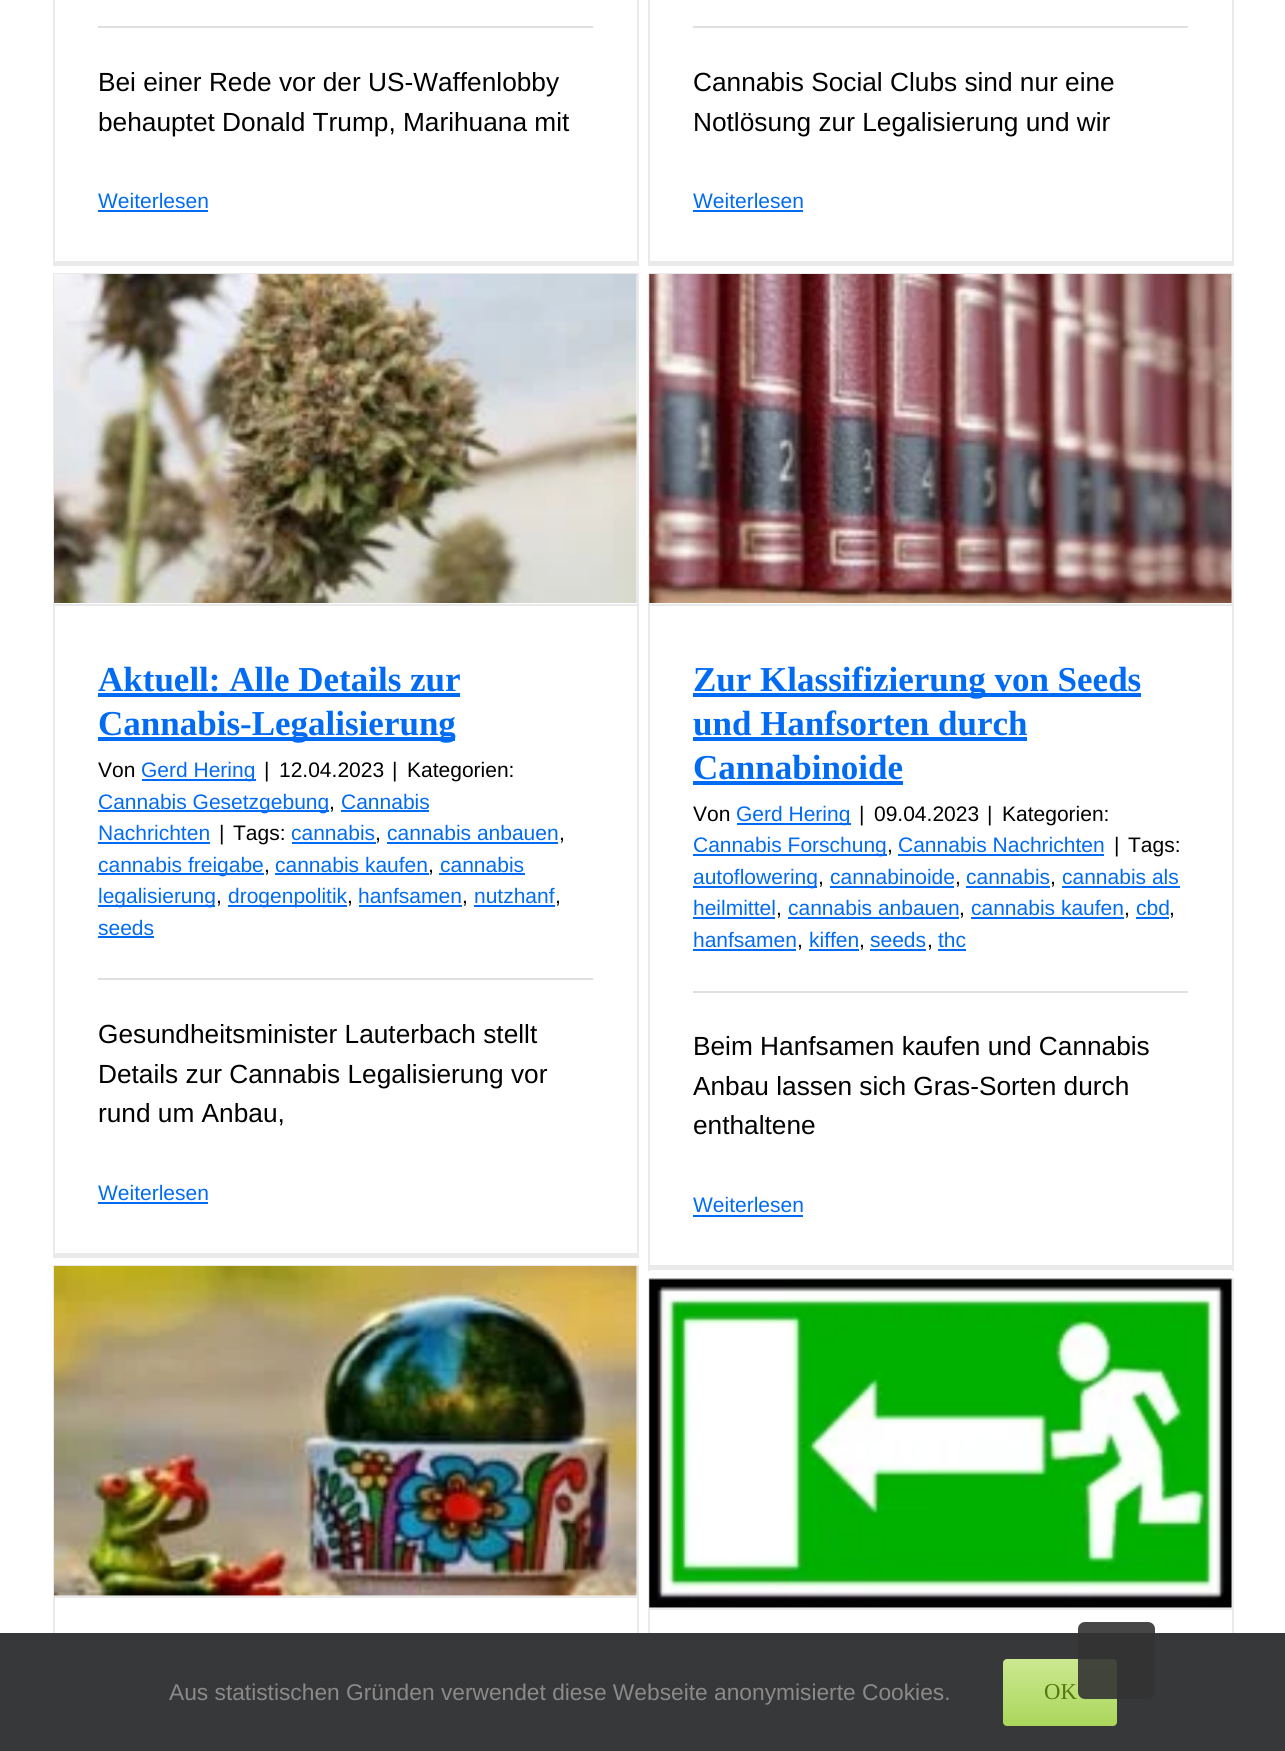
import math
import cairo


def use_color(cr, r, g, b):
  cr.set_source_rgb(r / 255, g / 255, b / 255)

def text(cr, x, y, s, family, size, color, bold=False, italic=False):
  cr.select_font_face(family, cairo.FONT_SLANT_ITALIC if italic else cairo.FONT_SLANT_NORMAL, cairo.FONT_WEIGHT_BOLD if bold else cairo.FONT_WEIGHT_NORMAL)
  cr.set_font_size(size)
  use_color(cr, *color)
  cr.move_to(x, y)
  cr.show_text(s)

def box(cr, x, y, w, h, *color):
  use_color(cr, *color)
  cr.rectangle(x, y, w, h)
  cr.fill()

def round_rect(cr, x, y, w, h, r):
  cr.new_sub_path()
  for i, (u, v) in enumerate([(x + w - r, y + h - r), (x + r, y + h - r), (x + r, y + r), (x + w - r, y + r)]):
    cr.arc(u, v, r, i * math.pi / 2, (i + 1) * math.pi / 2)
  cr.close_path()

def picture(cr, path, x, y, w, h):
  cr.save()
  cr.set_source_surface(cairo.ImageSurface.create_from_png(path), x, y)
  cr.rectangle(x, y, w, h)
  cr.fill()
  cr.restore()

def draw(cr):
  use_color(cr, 255, 255, 255)
  cr.paint()
  box(cr, 637, 0, 2, 266, 235, 234, 234)
  box(cr, 53, 261, 586, 5, 235, 234, 234)
  box(cr, 53, 0, 2, 266, 235, 234, 234)
  box(cr, 98, 26, 495, 2, 224, 222, 222)
  box(cr, 98, 210, 110, 2, 2, 107, 244)
  box(cr, 1232, 0, 2, 266, 235, 234, 234)
  box(cr, 648, 261, 586, 5, 235, 234, 234)
  box(cr, 648, 0, 2, 266, 235, 234, 234)
  box(cr, 693, 26, 495, 2, 224, 222, 222)
  box(cr, 693, 210, 110, 2, 2, 107, 244)
  box(cr, 53, 273, 586, 2, 235, 234, 234)
  box(cr, 637, 273, 2, 985, 235, 234, 234)
  box(cr, 53, 1253, 586, 5, 235, 234, 234)
  box(cr, 53, 273, 2, 985, 235, 234, 234)
  box(cr, 54, 604, 583, 2, 235, 234, 234)
  picture(cr, "img_01.png", 54, 274, 584, 329)
  box(cr, 98, 693, 362, 4, 2, 107, 244)
  box(cr, 98, 737, 357, 4, 2, 107, 244)
  box(cr, 142, 779, 114, 2, 2, 107, 244)
  box(cr, 98, 810, 231, 2, 2, 107, 244)
  box(cr, 341, 810, 88, 2, 2, 107, 244)
  box(cr, 98, 842, 112, 2, 2, 107, 244)
  box(cr, 292, 842, 84, 2, 2, 107, 244)
  box(cr, 387, 842, 171, 2, 2, 107, 244)
  box(cr, 98, 873, 166, 2, 2, 107, 244)
  box(cr, 275, 873, 154, 2, 2, 107, 244)
  box(cr, 439, 873, 86, 2, 2, 107, 244)
  box(cr, 98, 905, 117, 2, 2, 107, 244)
  box(cr, 228, 905, 119, 2, 2, 107, 244)
  box(cr, 359, 905, 103, 2, 2, 107, 244)
  box(cr, 474, 905, 81, 2, 2, 107, 244)
  box(cr, 98, 936, 56, 2, 2, 107, 244)
  box(cr, 98, 978, 495, 2, 224, 222, 222)
  box(cr, 98, 1202, 110, 2, 2, 107, 244)
  box(cr, 648, 273, 586, 2, 235, 234, 234)
  box(cr, 1232, 273, 2, 998, 235, 234, 234)
  box(cr, 648, 1265, 586, 5, 235, 234, 234)
  box(cr, 648, 273, 2, 998, 235, 234, 234)
  box(cr, 649, 604, 583, 2, 235, 234, 234)
  picture(cr, "img_02.png", 649, 274, 583, 329)
  box(cr, 693, 693, 448, 4, 2, 107, 244)
  box(cr, 693, 737, 334, 4, 2, 107, 244)
  box(cr, 693, 781, 210, 4, 2, 107, 244)
  box(cr, 737, 823, 114, 2, 2, 107, 244)
  box(cr, 693, 854, 194, 2, 2, 107, 244)
  box(cr, 898, 854, 206, 2, 2, 107, 244)
  box(cr, 693, 886, 124, 2, 2, 107, 244)
  box(cr, 830, 886, 124, 2, 2, 107, 244)
  box(cr, 966, 886, 84, 2, 2, 107, 244)
  box(cr, 1062, 886, 118, 2, 2, 107, 244)
  box(cr, 693, 917, 82, 2, 2, 107, 244)
  box(cr, 788, 917, 171, 2, 2, 107, 244)
  box(cr, 971, 917, 153, 2, 2, 107, 244)
  box(cr, 1136, 917, 33, 2, 2, 107, 244)
  box(cr, 693, 949, 103, 2, 2, 107, 244)
  box(cr, 809, 949, 50, 2, 2, 107, 244)
  box(cr, 870, 949, 56, 2, 2, 107, 244)
  box(cr, 938, 949, 28, 2, 2, 107, 244)
  box(cr, 693, 991, 495, 2, 224, 222, 222)
  box(cr, 693, 1215, 110, 2, 2, 107, 244)
  box(cr, 53, 1265, 586, 2, 235, 234, 234)
  box(cr, 637, 1265, 2, 368, 235, 234, 234)
  box(cr, 53, 1265, 2, 368, 235, 234, 234)
  box(cr, 54, 1596, 583, 2, 235, 234, 234)
  picture(cr, "img_03.png", 54, 1266, 584, 330)
  box(cr, 648, 1278, 586, 2, 235, 234, 234)
  box(cr, 1232, 1278, 2, 355, 235, 234, 234)
  box(cr, 648, 1278, 2, 355, 235, 234, 234)
  box(cr, 649, 1608, 583, 2, 235, 234, 234)
  picture(cr, "img_04.png", 649, 1278, 583, 330)
  box(cr, 0, 1633, 1285, 118, 54, 56, 57)
  gradient = cairo.LinearGradient(1060, 1659, 1060, 1726)
  gradient.add_color_stop_rgba(0, 0.8, 0.91, 0.565, 1)
  gradient.add_color_stop_rgba(1, 0.667, 0.843, 0.357, 1)
  cr.set_source(gradient)
  round_rect(cr, 1003, 1659, 114, 67, 4)
  cr.fill()
  cr.set_source_rgba(0.2, 0.2, 0.2, 0.9)
  round_rect(cr, 1078, 1622, 77, 77, 7)
  cr.fill()
  text(cr, 98, 91, "Bei einer Rede vor der US-Waffenlobby", "Liberation Sans", 26.25, (0, 0, 0))
  text(cr, 98, 131, "behauptet Donald Trump, Marihuana mit", "Liberation Sans", 26.25, (0, 0, 0))
  text(cr, 98, 208, "Weiterlesen", "Liberation Sans", 21, (2, 107, 244))
  text(cr, 693, 91, "Cannabis Social Clubs sind nur eine", "Liberation Sans", 26.25, (0, 0, 0))
  text(cr, 693, 131, "Notlösung zur Legalisierung und wir", "Liberation Sans", 26.25, (0, 0, 0))
  text(cr, 693, 208, "Weiterlesen", "Liberation Sans", 21, (2, 107, 244))
  text(cr, 98, 691, "Aktuell: Alle Details zur", "Liberation Serif", 35, (2, 107, 244), bold=True)
  text(cr, 98, 735, "Cannabis-Legalisierung", "Liberation Serif", 35, (2, 107, 244), bold=True)
  text(cr, 98, 777, "Von", "Liberation Sans", 21, (0, 0, 0))
  text(cr, 141, 777, "Gerd Hering", "Liberation Sans", 21, (2, 107, 244))
  text(cr, 264, 777, "|", "Liberation Sans", 21, (0, 0, 0))
  text(cr, 279, 777, "12.04.2023", "Liberation Sans", 21, (0, 0, 0))
  text(cr, 392, 777, "|", "Liberation Sans", 21, (0, 0, 0))
  text(cr, 407, 777, "Kategorien:", "Liberation Sans", 21, (0, 0, 0))
  text(cr, 98, 809, "Cannabis Gesetzgebung", "Liberation Sans", 21, (2, 107, 244))
  text(cr, 329, 809, ",", "Liberation Sans", 21, (0, 0, 0))
  text(cr, 341, 809, "Cannabis", "Liberation Sans", 21, (2, 107, 244))
  text(cr, 98, 840, "Nachrichten", "Liberation Sans", 21, (2, 107, 244))
  text(cr, 219, 840, "|", "Liberation Sans", 21, (0, 0, 0))
  text(cr, 233, 840, "Tags:", "Liberation Sans", 21, (0, 0, 0))
  text(cr, 291, 840, "cannabis", "Liberation Sans", 21, (2, 107, 244))
  text(cr, 375, 840, ",", "Liberation Sans", 21, (0, 0, 0))
  text(cr, 387, 840, "cannabis anbauen", "Liberation Sans", 21, (2, 107, 244))
  text(cr, 559, 840, ",", "Liberation Sans", 21, (0, 0, 0))
  text(cr, 98, 872, "cannabis freigabe", "Liberation Sans", 21, (2, 107, 244))
  text(cr, 264, 872, ",", "Liberation Sans", 21, (0, 0, 0))
  text(cr, 275, 872, "cannabis kaufen", "Liberation Sans", 21, (2, 107, 244))
  text(cr, 428, 872, ",", "Liberation Sans", 21, (0, 0, 0))
  text(cr, 440, 872, "cannabis", "Liberation Sans", 21, (2, 107, 244))
  text(cr, 98, 903, "legalisierung", "Liberation Sans", 21, (2, 107, 244))
  text(cr, 216, 903, ",", "Liberation Sans", 21, (0, 0, 0))
  text(cr, 228, 903, "drogenpolitik", "Liberation Sans", 21, (2, 107, 244))
  text(cr, 347, 903, ",", "Liberation Sans", 21, (0, 0, 0))
  text(cr, 358, 903, "hanfsamen", "Liberation Sans", 21, (2, 107, 244))
  text(cr, 462, 903, ",", "Liberation Sans", 21, (0, 0, 0))
  text(cr, 474, 903, "nutzhanf", "Liberation Sans", 21, (2, 107, 244))
  text(cr, 555, 903, ",", "Liberation Sans", 21, (0, 0, 0))
  text(cr, 98, 935, "seeds", "Liberation Sans", 21, (2, 107, 244))
  text(cr, 98, 1043, "Gesundheitsminister Lauterbach stellt", "Liberation Sans", 26.25, (0, 0, 0))
  text(cr, 98, 1083, "Details zur Cannabis Legalisierung vor", "Liberation Sans", 26.25, (0, 0, 0))
  text(cr, 98, 1122, "rund um Anbau,", "Liberation Sans", 26.25, (0, 0, 0))
  text(cr, 98, 1200, "Weiterlesen", "Liberation Sans", 21, (2, 107, 244))
  text(cr, 693, 691, "Zur Klassifizierung von Seeds", "Liberation Serif", 35, (2, 107, 244), bold=True)
  text(cr, 693, 735, "und Hanfsorten durch", "Liberation Serif", 35, (2, 107, 244), bold=True)
  text(cr, 693, 779, "Cannabinoide", "Liberation Serif", 35, (2, 107, 244), bold=True)
  text(cr, 693, 821, "Von", "Liberation Sans", 21, (0, 0, 0))
  text(cr, 736, 821, "Gerd Hering", "Liberation Sans", 21, (2, 107, 244))
  text(cr, 859, 821, "|", "Liberation Sans", 21, (0, 0, 0))
  text(cr, 874, 821, "09.04.2023", "Liberation Sans", 21, (0, 0, 0))
  text(cr, 987, 821, "|", "Liberation Sans", 21, (0, 0, 0))
  text(cr, 1002, 821, "Kategorien:", "Liberation Sans", 21, (0, 0, 0))
  text(cr, 693, 852, "Cannabis Forschung", "Liberation Sans", 21, (2, 107, 244))
  text(cr, 887, 852, ",", "Liberation Sans", 21, (0, 0, 0))
  text(cr, 898, 852, "Cannabis Nachrichten", "Liberation Sans", 21, (2, 107, 244))
  text(cr, 1114, 852, "|", "Liberation Sans", 21, (0, 0, 0))
  text(cr, 1128, 852, "Tags:", "Liberation Sans", 21, (0, 0, 0))
  text(cr, 693, 884, "autoflowering", "Liberation Sans", 21, (2, 107, 244))
  text(cr, 818, 884, ",", "Liberation Sans", 21, (0, 0, 0))
  text(cr, 830, 884, "cannabinoide", "Liberation Sans", 21, (2, 107, 244))
  text(cr, 955, 884, ",", "Liberation Sans", 21, (0, 0, 0))
  text(cr, 966, 884, "cannabis", "Liberation Sans", 21, (2, 107, 244))
  text(cr, 1050, 884, ",", "Liberation Sans", 21, (0, 0, 0))
  text(cr, 1062, 884, "cannabis als", "Liberation Sans", 21, (2, 107, 244))
  text(cr, 693, 915, "heilmittel", "Liberation Sans", 21, (2, 107, 244))
  text(cr, 776, 915, ",", "Liberation Sans", 21, (0, 0, 0))
  text(cr, 788, 915, "cannabis anbauen", "Liberation Sans", 21, (2, 107, 244))
  text(cr, 959, 915, ",", "Liberation Sans", 21, (0, 0, 0))
  text(cr, 971, 915, "cannabis kaufen", "Liberation Sans", 21, (2, 107, 244))
  text(cr, 1124, 915, ",", "Liberation Sans", 21, (0, 0, 0))
  text(cr, 1136, 915, "cbd", "Liberation Sans", 21, (2, 107, 244))
  text(cr, 1169, 915, ",", "Liberation Sans", 21, (0, 0, 0))
  text(cr, 693, 947, "hanfsamen", "Liberation Sans", 21, (2, 107, 244))
  text(cr, 797, 947, ",", "Liberation Sans", 21, (0, 0, 0))
  text(cr, 809, 947, "kiffen", "Liberation Sans", 21, (2, 107, 244))
  text(cr, 859, 947, ",", "Liberation Sans", 21, (0, 0, 0))
  text(cr, 870, 947, "seeds", "Liberation Sans", 21, (2, 107, 244))
  text(cr, 927, 947, ",", "Liberation Sans", 21, (0, 0, 0))
  text(cr, 938, 947, "thc", "Liberation Sans", 21, (2, 107, 244))
  text(cr, 693, 1055, "Beim Hanfsamen kaufen und Cannabis", "Liberation Sans", 26.25, (0, 0, 0))
  text(cr, 693, 1095, "Anbau lassen sich Gras-Sorten durch", "Liberation Sans", 26.25, (0, 0, 0))
  text(cr, 693, 1134, "enthaltene", "Liberation Sans", 26.25, (0, 0, 0))
  text(cr, 693, 1212, "Weiterlesen", "Liberation Sans", 21, (2, 107, 244))
  text(cr, 169, 1700, "Aus statistischen Gründen verwendet diese Webseite anonymisierte Cookies.", "Liberation Sans", 22.75, (140, 137, 137))
  text(cr, 1044, 1699, "OK", "Liberation Serif", 22.75, (87, 120, 16))


surface = cairo.ImageSurface(cairo.FORMAT_RGB24, 1285, 1751)
cr = cairo.Context(surface)
options = cairo.FontOptions()
options.set_hint_metrics(cairo.HINT_METRICS_OFF)
options.set_hint_style(cairo.HINT_STYLE_NONE)
cr.set_font_options(options)
cr.set_miter_limit(4)
draw(cr)
surface.write_to_png("out.png")
